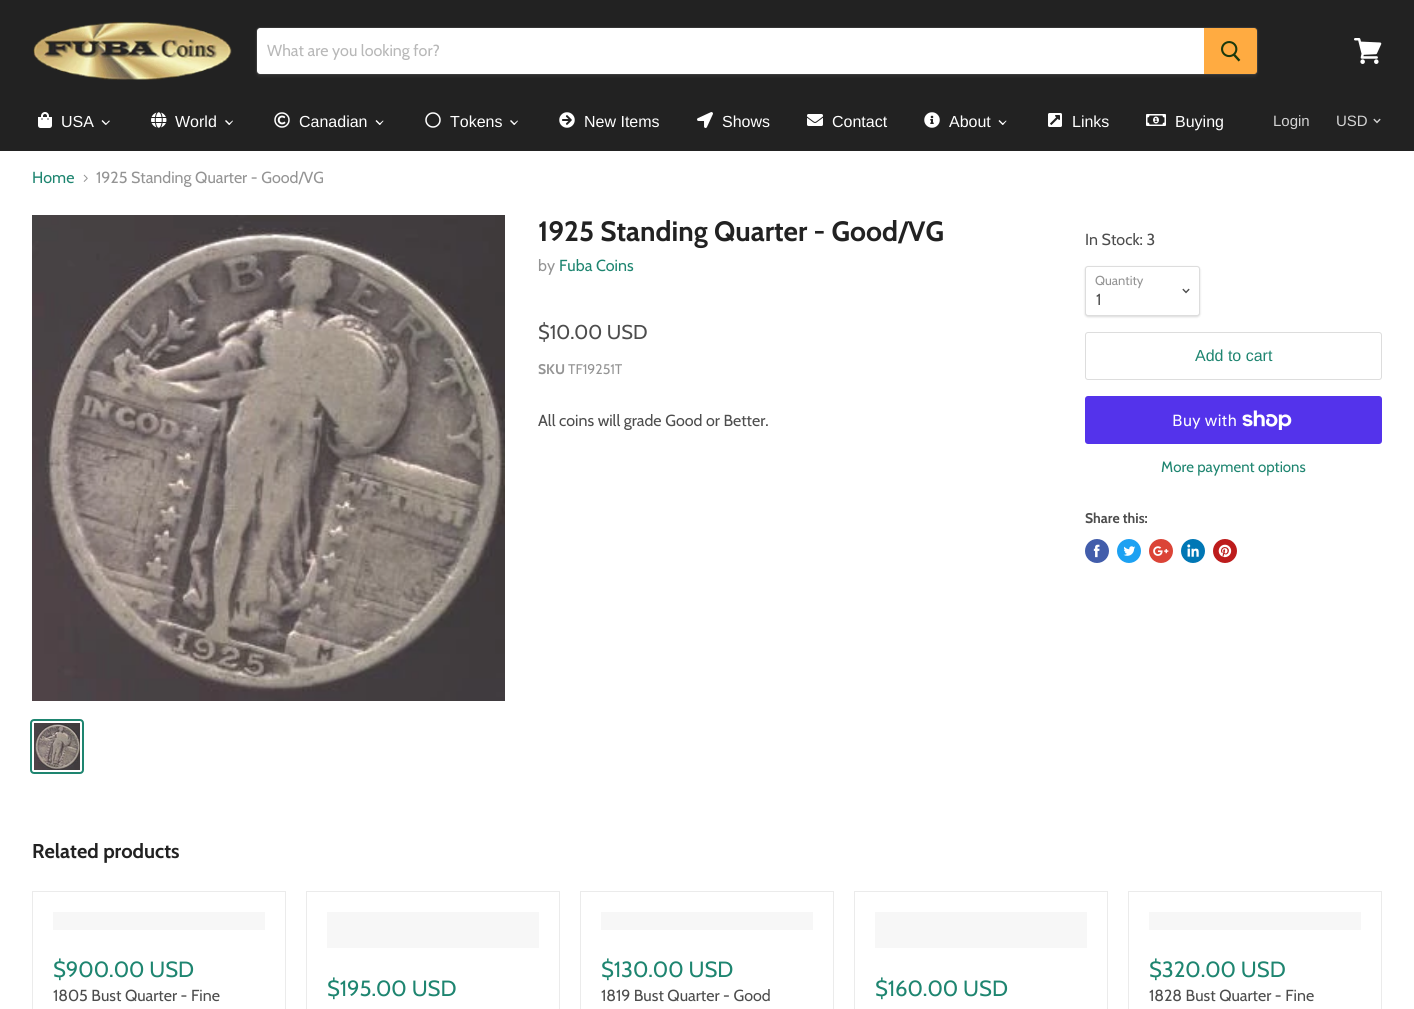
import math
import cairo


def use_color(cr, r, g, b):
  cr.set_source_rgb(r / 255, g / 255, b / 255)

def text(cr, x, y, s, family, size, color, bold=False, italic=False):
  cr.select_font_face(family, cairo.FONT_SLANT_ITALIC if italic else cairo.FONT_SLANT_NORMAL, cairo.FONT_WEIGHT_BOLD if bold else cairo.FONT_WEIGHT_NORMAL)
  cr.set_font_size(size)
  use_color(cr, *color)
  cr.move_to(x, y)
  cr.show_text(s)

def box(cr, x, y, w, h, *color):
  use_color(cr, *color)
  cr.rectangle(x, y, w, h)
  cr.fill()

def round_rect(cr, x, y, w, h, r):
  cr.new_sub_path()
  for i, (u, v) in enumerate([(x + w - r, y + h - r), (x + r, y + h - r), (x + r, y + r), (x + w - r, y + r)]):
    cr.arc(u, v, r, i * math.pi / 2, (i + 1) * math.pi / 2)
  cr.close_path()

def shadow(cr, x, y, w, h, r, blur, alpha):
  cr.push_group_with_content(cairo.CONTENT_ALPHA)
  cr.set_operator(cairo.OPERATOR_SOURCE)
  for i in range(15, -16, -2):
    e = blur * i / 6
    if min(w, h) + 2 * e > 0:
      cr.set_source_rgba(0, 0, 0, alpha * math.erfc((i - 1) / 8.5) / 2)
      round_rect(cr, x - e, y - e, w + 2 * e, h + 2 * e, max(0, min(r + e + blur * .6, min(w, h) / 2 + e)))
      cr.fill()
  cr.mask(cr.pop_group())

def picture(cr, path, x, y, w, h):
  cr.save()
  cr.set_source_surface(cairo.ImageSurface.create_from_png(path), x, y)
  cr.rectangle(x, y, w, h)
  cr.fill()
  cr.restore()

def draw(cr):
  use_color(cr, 255, 255, 255)
  cr.paint()
  box(cr, 0, 0, 1414, 151, 34, 34, 34)
  picture(cr, "img_01.png", 33, 22, 199, 58)
  use_color(cr, 127, 127, 127)
  shadow(cr, 256, 29, 1002, 48, 4, 1.5, 0.11)
  round_rect(cr, 256.5, 27.5, 1001, 47, 3.5)
  cr.set_source_rgba(0.498, 0.498, 0.498, 0.2)
  cr.set_line_width(1)
  cr.stroke()
  use_color(cr, 255, 255, 255)
  cr.new_path()
  cr.move_to(260, 28)
  cr.line_to(1204, 28)
  cr.line_to(1204, 74)
  cr.line_to(260, 74)
  cr.curve_to(258.5, 74, 257, 72.5, 257, 71)
  cr.line_to(257, 31)
  cr.curve_to(257, 29.5, 258.5, 28, 260, 28)
  cr.close_path()
  cr.fill()
  use_color(cr, 255, 171, 65)
  cr.new_path()
  cr.move_to(1204.5, 28.5)
  cr.line_to(1254, 28.5)
  cr.curve_to(1255.5, 28.5, 1256.5, 29.5, 1256.5, 31)
  cr.line_to(1256.5, 71)
  cr.curve_to(1256.5, 72.5, 1255.5, 73.5, 1254, 73.5)
  cr.line_to(1204.5, 73.5)
  cr.close_path()
  cr.fill_preserve()
  cr.stroke()
  picture(cr, "img_02.png", 1221, 41, 20, 21)
  picture(cr, "img_03.png", 1354, 38, 28, 26)
  picture(cr, "img_04.png", 38, 112, 14, 16)
  use_color(cr, 255, 255, 255)
  cr.new_path()
  cr.move_to(109, 120.5)
  cr.line_to(110, 121)
  cr.line_to(106, 125)
  cr.line_to(105.5, 124)
  cr.close_path()
  cr.fill()
  cr.new_path()
  cr.move_to(102.5, 120)
  cr.line_to(106.5, 124)
  cr.line_to(105.5, 125)
  cr.line_to(101.5, 121)
  cr.close_path()
  cr.fill()
  picture(cr, "img_05.png", 151, 112, 16, 16)
  cr.new_path()
  cr.move_to(232.5, 120.5)
  cr.line_to(233, 121)
  cr.line_to(229.5, 125)
  cr.line_to(228.5, 124)
  cr.close_path()
  cr.fill()
  cr.new_path()
  cr.move_to(226, 120)
  cr.line_to(230, 124)
  cr.line_to(229, 125)
  cr.line_to(225, 121)
  cr.close_path()
  cr.fill()
  picture(cr, "img_06.png", 274, 112, 16, 16)
  cr.new_path()
  cr.move_to(383, 120.5)
  cr.line_to(383.5, 121)
  cr.line_to(380, 125)
  cr.line_to(379, 124)
  cr.close_path()
  cr.fill()
  cr.new_path()
  cr.move_to(376.5, 120)
  cr.line_to(380.5, 124)
  cr.line_to(379.5, 125)
  cr.line_to(375.5, 121)
  cr.close_path()
  cr.fill()
  picture(cr, "img_07.png", 425, 112, 16, 16)
  cr.new_path()
  cr.move_to(517.5, 120.5)
  cr.line_to(518, 121)
  cr.line_to(514.5, 125)
  cr.line_to(513.5, 124)
  cr.close_path()
  cr.fill()
  cr.new_path()
  cr.move_to(511, 120)
  cr.line_to(515, 124)
  cr.line_to(514, 125)
  cr.line_to(510, 121)
  cr.close_path()
  cr.fill()
  picture(cr, "img_08.png", 559, 112, 16, 16)
  picture(cr, "img_09.png", 697, 112, 16, 16)
  picture(cr, "img_10.png", 807, 114, 16, 12)
  picture(cr, "img_11.png", 924, 112, 16, 16)
  cr.new_path()
  cr.move_to(1006, 120.5)
  cr.line_to(1006.5, 121)
  cr.line_to(1003, 125)
  cr.line_to(1002, 124)
  cr.close_path()
  cr.fill()
  cr.new_path()
  cr.move_to(999.5, 120)
  cr.line_to(1003.5, 124)
  cr.line_to(1002.5, 125)
  cr.line_to(998.5, 121)
  cr.close_path()
  cr.fill()
  picture(cr, "img_12.png", 1048, 113, 14, 14)
  picture(cr, "img_13.png", 1146, 114, 20, 12)
  picture(cr, "img_14.png", 1373, 118, 8, 6)
  picture(cr, "img_15.png", 83, 174, 5, 8)
  picture(cr, "img_16.png", 32, 215, 473, 486)
  round_rect(cr, 31, 720, 52, 53, 3)
  use_color(cr, 30, 133, 112)
  cr.set_line_width(2)
  cr.stroke()
  picture(cr, "img_17.png", 34, 723, 46, 47)
  use_color(cr, 0, 0, 0)
  shadow(cr, 1085, 267, 115, 50, 3, 1, 0.15)
  use_color(cr, 255, 255, 255)
  round_rect(cr, 1085.5, 266.5, 114, 49, 2.5)
  cr.fill_preserve()
  use_color(cr, 221, 221, 221)
  cr.set_line_width(1)
  cr.stroke()
  picture(cr, "img_18.png", 1182, 288, 8, 6)
  round_rect(cr, 1085.5, 332.5, 296, 47, 2.5)
  cr.stroke()
  use_color(cr, 84, 51, 235)
  round_rect(cr, 1085, 396, 297, 48, 3)
  cr.fill()
  picture(cr, "img_19.png", 1242, 410, 50, 20)
  use_color(cr, 66, 93, 171)
  cr.arc(1097, 551, 12, 0, 2 * math.pi)
  cr.fill()
  picture(cr, "img_20.png", 1093, 544, 7, 14)
  use_color(cr, 29, 161, 242)
  cr.arc(1129, 551, 12, 0, 2 * math.pi)
  cr.fill()
  picture(cr, "img_21.png", 1123, 546, 13, 10)
  use_color(cr, 219, 68, 55)
  cr.arc(1161, 551, 12, 0, 2 * math.pi)
  cr.fill()
  picture(cr, "img_22.png", 1153, 546, 16, 10)
  use_color(cr, 0, 119, 181)
  cr.arc(1193, 551, 12, 0, 2 * math.pi)
  cr.fill()
  picture(cr, "img_23.png", 1187, 544, 12, 13)
  use_color(cr, 189, 28, 28)
  cr.arc(1225, 551, 12, 0, 2 * math.pi)
  cr.fill()
  picture(cr, "img_24.png", 1218, 544, 14, 14)
  cr.rectangle(32.5, 891.5, 253, 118)
  use_color(cr, 235, 235, 235)
  cr.stroke()
  box(cr, 53, 912, 212, 18, 247, 247, 247)
  cr.rectangle(306.5, 891.5, 253, 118)
  use_color(cr, 235, 235, 235)
  cr.stroke()
  box(cr, 327, 912, 212, 36, 247, 247, 247)
  cr.rectangle(580.5, 891.5, 253, 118)
  use_color(cr, 235, 235, 235)
  cr.stroke()
  box(cr, 601, 912, 212, 18, 247, 247, 247)
  cr.rectangle(854.5, 891.5, 253, 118)
  use_color(cr, 235, 235, 235)
  cr.stroke()
  box(cr, 875, 912, 212, 36, 247, 247, 247)
  cr.rectangle(1128.5, 891.5, 253, 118)
  use_color(cr, 235, 235, 235)
  cr.stroke()
  box(cr, 1149, 912, 212, 18, 247, 247, 247)
  text(cr, 267, 56, "What are you looking for?", "Cabin", 16, (184, 184, 184))
  text(cr, 61, 127, "USA", "Liberation Sans", 16, (255, 255, 255))
  text(cr, 175, 127, "World", "Liberation Sans", 16, (255, 255, 255))
  text(cr, 299, 127, "Canadian", "Liberation Sans", 16, (255, 255, 255))
  text(cr, 450, 127, "Tokens", "Liberation Sans", 16, (255, 255, 255))
  text(cr, 584, 127, "New Items", "Liberation Sans", 16, (255, 255, 255))
  text(cr, 722, 127, "Shows", "Liberation Sans", 16, (255, 255, 255))
  text(cr, 832, 127, "Contact", "Liberation Sans", 16, (255, 255, 255))
  text(cr, 949, 127, "About", "Liberation Sans", 16, (255, 255, 255))
  text(cr, 1072, 127, "Links", "Liberation Sans", 16, (255, 255, 255))
  text(cr, 1175, 127, "Buying", "Liberation Sans", 16, (255, 255, 255))
  text(cr, 1273, 126, "Login", "Liberation Sans", 15, (211, 211, 211))
  text(cr, 1336, 126, "USD", "Liberation Sans", 15, (211, 211, 211))
  text(cr, 32, 183, "Home", "Cabin", 16, (30, 133, 112))
  text(cr, 96, 183, "1925 Standing Quarter - Good/VG", "Cabin", 16, (148, 148, 148))
  text(cr, 538, 241, "1925 Standing Quarter - Good/VG", "Cabin", 28, (34, 34, 34), bold=True)
  text(cr, 538, 271, "by", "Cabin", 16, (148, 148, 148))
  text(cr, 559, 271, "Fuba Coins", "Cabin", 16, (30, 133, 112))
  text(cr, 538, 339, "$10.00 USD", "Cabin", 20, (77, 77, 77))
  text(cr, 538, 374, "SKU", "Cabin", 14, (148, 148, 148), bold=True)
  text(cr, 568, 374, "TF19251T", "Cabin", 14, (148, 148, 148))
  text(cr, 538, 426, "All coins will grade Good or Better.", "Cabin", 16, (77, 77, 77))
  text(cr, 1085, 245, "In Stock: 3", "Cabin", 16, (77, 77, 77))
  text(cr, 1095, 285, "Quantity", "Cabin", 13, (148, 148, 148))
  text(cr, 1096, 305, "1", "Cabin", 16, (77, 77, 77))
  text(cr, 1195, 361, "Add to cart", "Liberation Sans", 16, (30, 133, 112))
  text(cr, 1172, 426, "Buy with", "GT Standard", 16, (255, 255, 255))
  text(cr, 1161, 472, "More payment options", "Cabin", 15, (30, 133, 112))
  text(cr, 1085, 523, "Share this:", "Cabin", 14, (77, 77, 77), bold=True)
  text(cr, 32, 858, "Related products", "Cabin", 20, (34, 34, 34), bold=True)
  text(cr, 53, 977, "$900.00 USD", "Cabin", 22, (30, 133, 112))
  text(cr, 53, 1001, "1805 Bust Quarter - Fine", "Cabin", 16, (77, 77, 77))
  text(cr, 327, 996, "$195.00 USD", "Cabin", 22, (30, 133, 112))
  text(cr, 601, 977, "$130.00 USD", "Cabin", 22, (30, 133, 112))
  text(cr, 601, 1001, "1819 Bust Quarter - Good", "Cabin", 16, (77, 77, 77))
  text(cr, 875, 996, "$160.00 USD", "Cabin", 22, (30, 133, 112))
  text(cr, 1149, 977, "$320.00 USD", "Cabin", 22, (30, 133, 112))
  text(cr, 1149, 1001, "1828 Bust Quarter - Fine", "Cabin", 16, (77, 77, 77))


surface = cairo.ImageSurface(cairo.FORMAT_RGB24, 1414, 1009)
cr = cairo.Context(surface)
options = cairo.FontOptions()
options.set_hint_metrics(cairo.HINT_METRICS_OFF)
options.set_hint_style(cairo.HINT_STYLE_NONE)
cr.set_font_options(options)
cr.set_miter_limit(4)
draw(cr)
surface.write_to_png("out.png")
